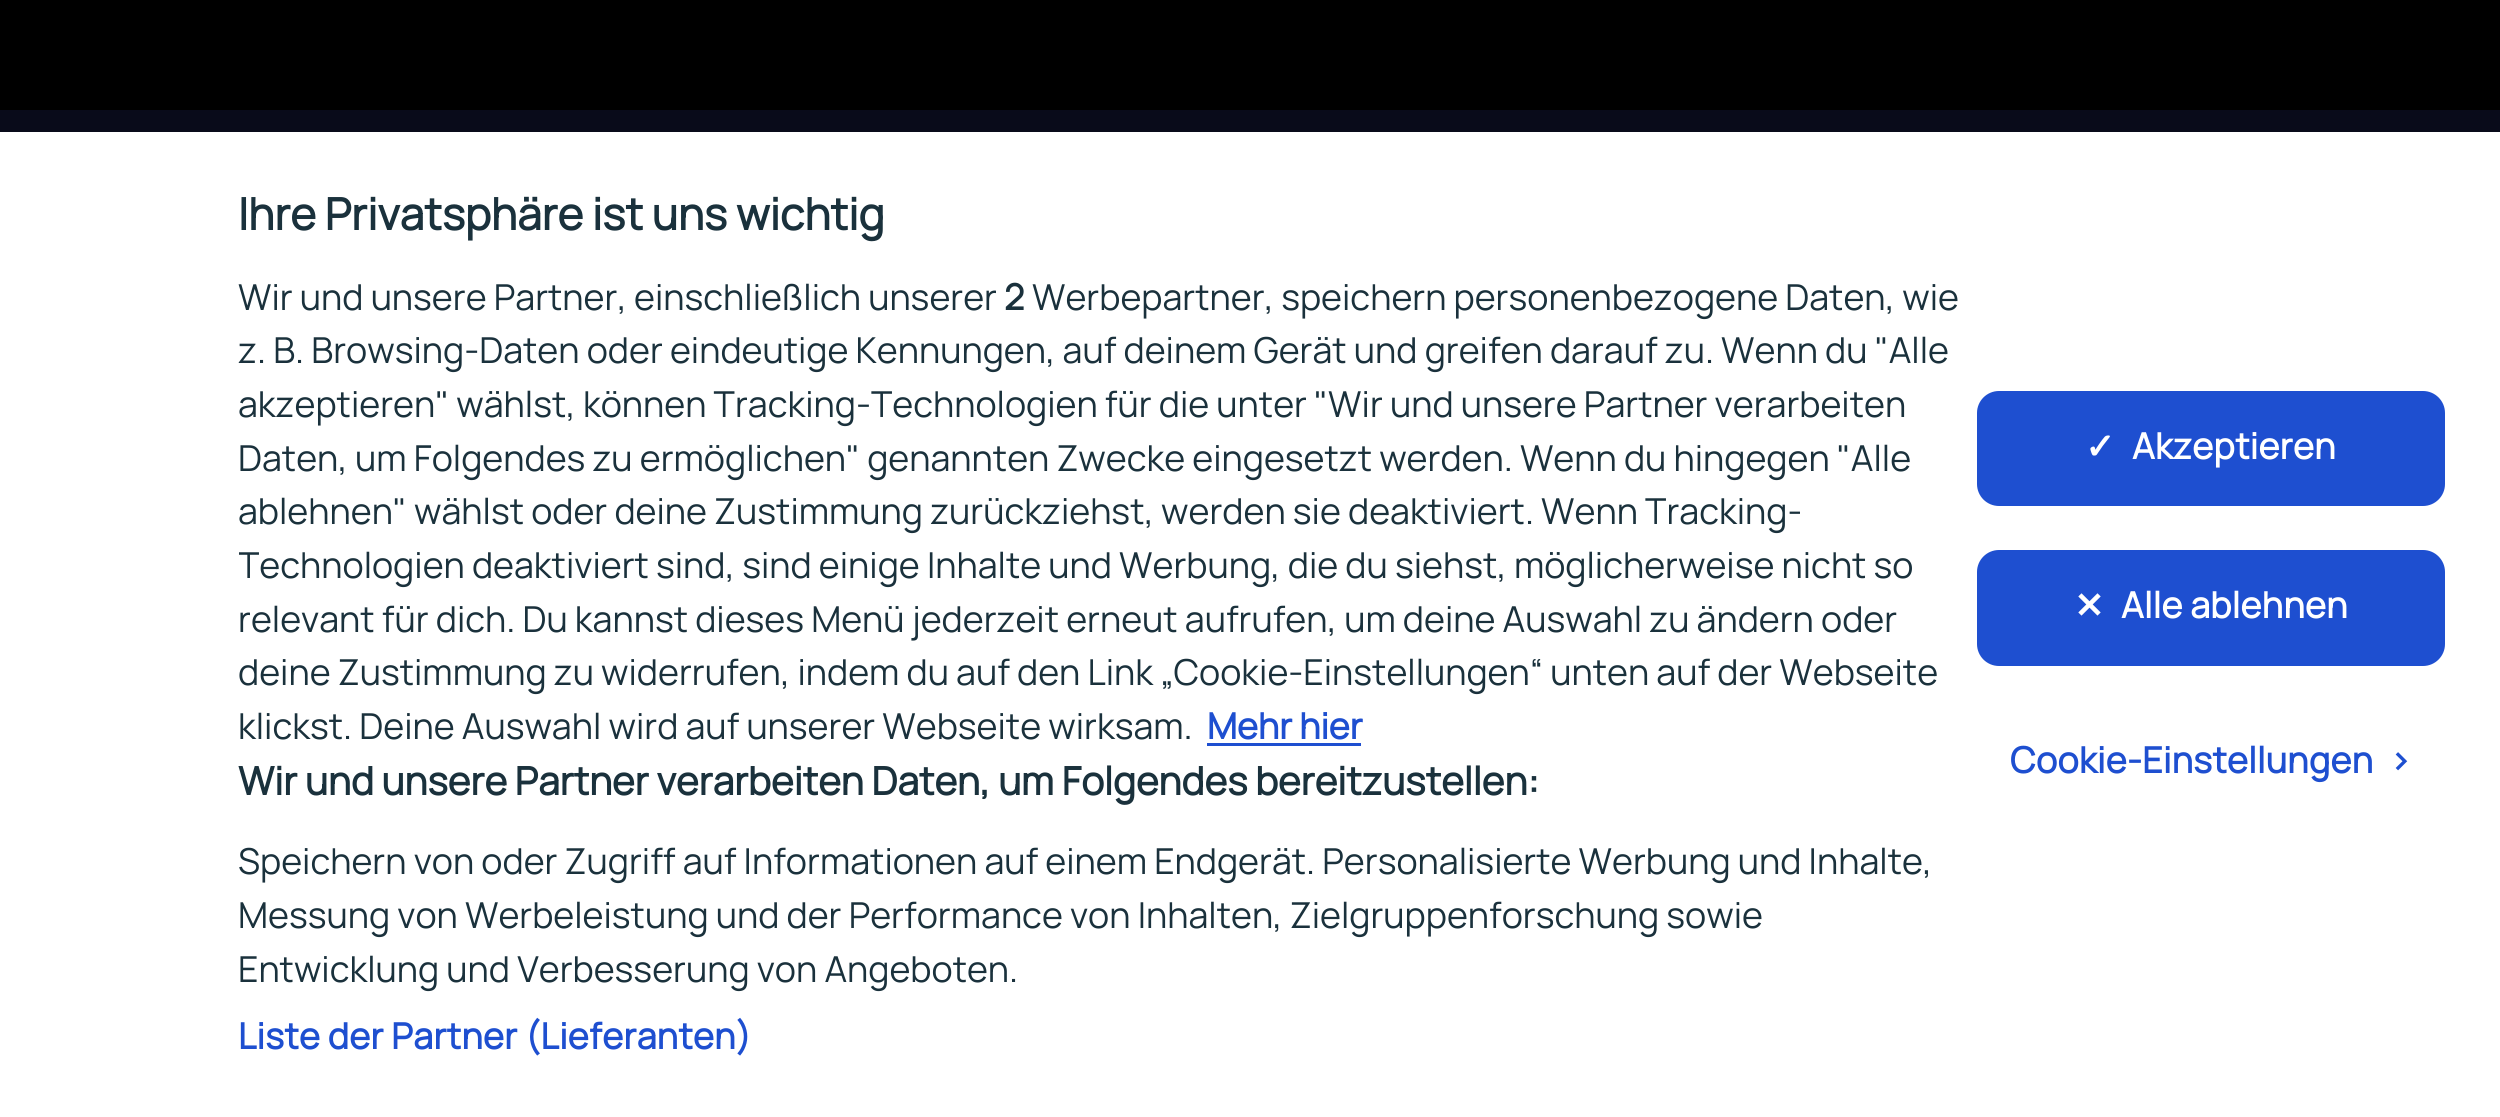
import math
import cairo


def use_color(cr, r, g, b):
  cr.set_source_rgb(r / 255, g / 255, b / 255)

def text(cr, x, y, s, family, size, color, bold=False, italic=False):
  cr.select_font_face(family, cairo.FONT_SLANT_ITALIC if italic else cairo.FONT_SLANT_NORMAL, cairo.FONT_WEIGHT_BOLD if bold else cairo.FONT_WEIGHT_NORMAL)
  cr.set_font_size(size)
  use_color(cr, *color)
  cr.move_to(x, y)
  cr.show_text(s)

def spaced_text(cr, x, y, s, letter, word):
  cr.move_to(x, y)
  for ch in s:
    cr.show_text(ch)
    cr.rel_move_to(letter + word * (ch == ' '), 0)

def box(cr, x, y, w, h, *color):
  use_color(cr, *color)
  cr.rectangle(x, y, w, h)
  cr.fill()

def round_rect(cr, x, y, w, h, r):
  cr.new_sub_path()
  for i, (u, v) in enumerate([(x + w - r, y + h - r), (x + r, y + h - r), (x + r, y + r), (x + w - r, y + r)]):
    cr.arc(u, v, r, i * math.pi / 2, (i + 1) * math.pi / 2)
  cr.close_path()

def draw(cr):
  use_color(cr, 9, 11, 26)
  cr.paint()
  box(cr, 0, 0, 2500, 110, 0, 0, 0)
  box(cr, 0, 132, 2500, 985, 255, 255, 255)
  box(cr, 1207, 743, 154, 3, 30, 79, 208)
  round_rect(cr, 1978.5, 392.5, 465, 112, 20.5)
  cr.fill_preserve()
  cr.set_line_width(3)
  cr.stroke()
  round_rect(cr, 1978.5, 551.5, 465, 113, 20.5)
  cr.fill_preserve()
  cr.stroke()
  text(cr, 238, 230, "Ihre Privatsphäre ist uns wichtig", "Manrope", 44, (26, 49, 60), bold=True)
  text(cr, 238, 310, "Wir und unsere Partner, einschließlich unserer", "Manrope", 35.75, (26, 49, 60))
  text(cr, 1004, 310, "2", "Manrope", 35.75, (26, 49, 60), bold=True)
  text(cr, 1032, 310, "Werbepartner, speichern personenbezogene Daten, wie", "Manrope", 35.75, (26, 49, 60))
  text(cr, 238, 363, "z. B. Browsing-Daten oder eindeutige Kennungen, auf deinem Gerät und greifen darauf zu. Wenn du \"Alle", "Manrope", 35.75, (26, 49, 60))
  text(cr, 238, 417, "akzeptieren\" wählst, können Tracking-Technologien für die unter \"Wir und unsere Partner verarbeiten", "Manrope", 35.75, (26, 49, 60))
  text(cr, 238, 471, "Daten, um Folgendes zu ermöglichen\" genannten Zwecke eingesetzt werden. Wenn du hingegen \"Alle", "Manrope", 35.75, (26, 49, 60))
  text(cr, 238, 524, "ablehnen\" wählst oder deine Zustimmung zurückziehst, werden sie deaktiviert. Wenn Tracking-", "Manrope", 35.75, (26, 49, 60))
  cr.save()
  cr.rectangle(239, 187, 1733, 905)
  cr.clip()
  text(cr, 238, 578, "Technologien deaktiviert sind, sind einige Inhalte und Werbung, die du siehst, möglicherweise nicht so", "Manrope", 35.75, (26, 49, 60))
  cr.restore()
  text(cr, 238, 632, "relevant für dich. Du kannst dieses Menü jederzeit erneut aufrufen, um deine Auswahl zu ändern oder", "Manrope", 35.75, (26, 49, 60))
  text(cr, 238, 685, "deine Zustimmung zu widerrufen, indem du auf den Link „Cookie-Einstellungen“ unten auf der Webseite", "Manrope", 35.75, (26, 49, 60))
  text(cr, 238, 739, "klickst. Deine Auswahl wird auf unserer Webseite wirksam.", "Manrope", 35.75, (26, 49, 60))
  text(cr, 1207, 739, "Mehr hier", "Manrope", 35.75, (30, 79, 208), bold=True)
  text(cr, 238, 795, "Wir und unsere Partner verarbeiten Daten, um Folgendes bereitzustellen:", "Manrope", 38.7, (26, 49, 60), bold=True)
  text(cr, 238, 874, "Speichern von oder Zugriff auf Informationen auf einem Endgerät. Personalisierte Werbung und Inhalte,", "Manrope", 35.75, (26, 49, 60))
  text(cr, 238, 928, "Messung von Werbeleistung und der Performance von Inhalten, Zielgruppenforschung sowie", "Manrope", 35.75, (26, 49, 60))
  text(cr, 238, 982, "Entwicklung und Verbesserung von Angeboten.", "Manrope", 35.75, (26, 49, 60))
  cr.select_font_face("Manrope", cairo.FONT_SLANT_NORMAL, cairo.FONT_WEIGHT_BOLD)
  use_color(cr, 30, 79, 208)
  spaced_text(cr, 238, 1049, "Liste der Partner (Lieferanten)", 0.35, 0)
  cr.select_font_face("DejaVu Sans", cairo.FONT_SLANT_NORMAL, cairo.FONT_WEIGHT_BOLD)
  use_color(cr, 255, 255, 255)
  spaced_text(cr, 2085, 459, "✓", 0.35, 0)
  cr.select_font_face("Manrope", cairo.FONT_SLANT_NORMAL, cairo.FONT_WEIGHT_BOLD)
  spaced_text(cr, 2132, 459, "Akzeptieren", 0.35, 0)
  cr.select_font_face("DejaVu Sans", cairo.FONT_SLANT_NORMAL, cairo.FONT_WEIGHT_BOLD)
  spaced_text(cr, 2074, 618, "✕", 0.35, 0)
  cr.select_font_face("Manrope", cairo.FONT_SLANT_NORMAL, cairo.FONT_WEIGHT_BOLD)
  spaced_text(cr, 2121, 618, "Alle ablehnen", 0.35, 0)
  use_color(cr, 30, 79, 208)
  spaced_text(cr, 2010, 773, "Cookie-Einstellungen", 0.35, 0)
  spaced_text(cr, 2389, 773, ">", 0.35, 0)


surface = cairo.ImageSurface(cairo.FORMAT_RGB24, 2500, 1117)
cr = cairo.Context(surface)
options = cairo.FontOptions()
options.set_hint_metrics(cairo.HINT_METRICS_OFF)
options.set_hint_style(cairo.HINT_STYLE_NONE)
cr.set_font_options(options)
cr.set_miter_limit(4)
draw(cr)
surface.write_to_png("out.png")
